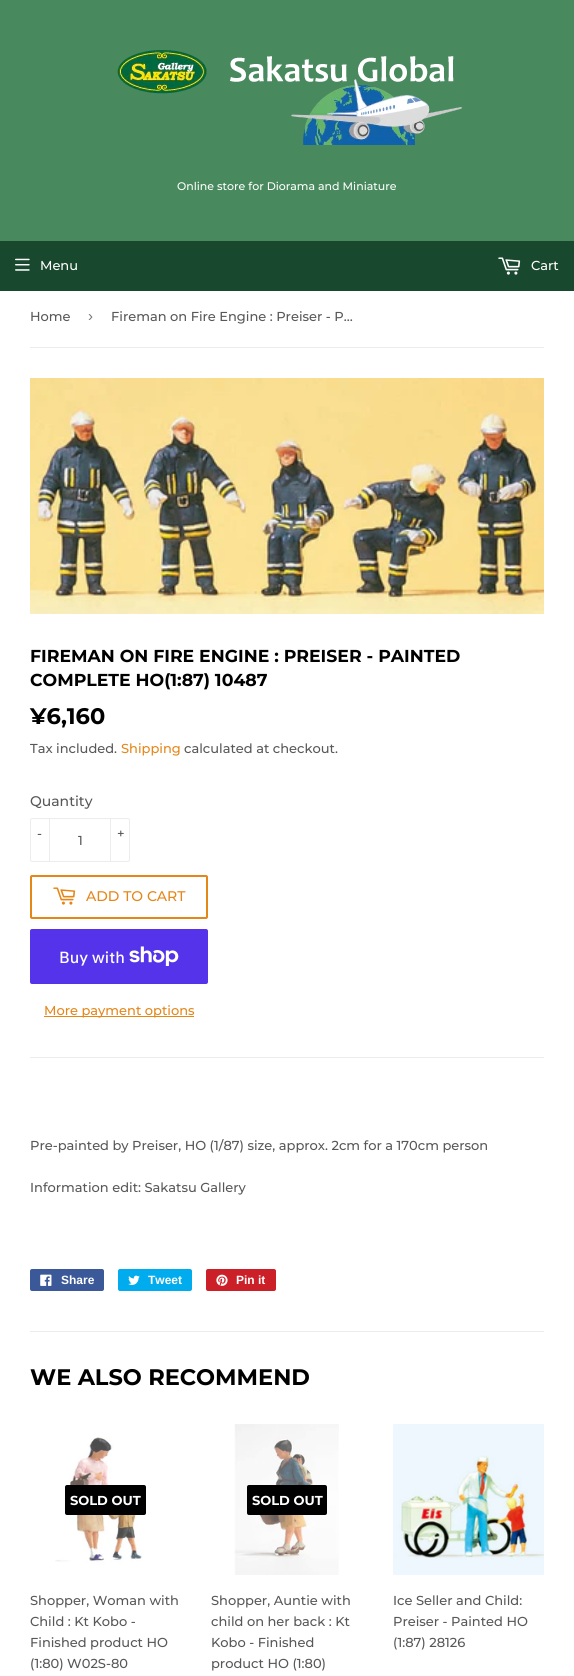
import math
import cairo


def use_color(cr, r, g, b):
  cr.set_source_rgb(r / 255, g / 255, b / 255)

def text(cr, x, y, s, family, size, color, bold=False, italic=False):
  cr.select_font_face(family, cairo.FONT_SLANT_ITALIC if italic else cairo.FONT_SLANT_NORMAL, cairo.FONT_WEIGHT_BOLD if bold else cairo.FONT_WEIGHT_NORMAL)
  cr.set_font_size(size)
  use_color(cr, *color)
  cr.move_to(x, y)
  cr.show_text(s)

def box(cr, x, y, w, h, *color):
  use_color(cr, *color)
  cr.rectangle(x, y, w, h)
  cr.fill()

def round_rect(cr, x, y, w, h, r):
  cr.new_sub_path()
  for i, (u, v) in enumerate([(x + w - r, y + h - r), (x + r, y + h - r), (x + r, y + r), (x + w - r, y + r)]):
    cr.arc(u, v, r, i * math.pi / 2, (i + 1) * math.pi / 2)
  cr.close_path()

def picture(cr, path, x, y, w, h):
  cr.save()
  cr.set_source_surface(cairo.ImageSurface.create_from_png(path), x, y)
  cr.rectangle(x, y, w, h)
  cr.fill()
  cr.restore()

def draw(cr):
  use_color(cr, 255, 255, 255)
  cr.paint()
  box(cr, 0, 0, 574, 241, 72, 137, 94)
  picture(cr, "img_01.png", 117, 50, 345, 95)
  box(cr, 0, 241, 574, 50, 24, 73, 46)
  picture(cr, "img_02.png", 15, 258, 15, 13)
  picture(cr, "img_03.png", 498, 257, 23, 18)
  box(cr, 30, 347, 514, 1, 236, 236, 236)
  picture(cr, "img_04.png", 30, 378, 514, 236)
  round_rect(cr, 30.5, 818.5, 99, 43, 1.5)
  cr.set_line_width(1)
  cr.stroke()
  box(cr, 49, 818, 1, 44, 236, 236, 236)
  box(cr, 110, 818, 1, 44, 236, 236, 236)
  round_rect(cr, 31, 876, 176, 42, 1)
  use_color(cr, 229, 134, 25)
  cr.set_line_width(2)
  cr.stroke()
  picture(cr, "img_05.png", 53, 887, 23, 18)
  use_color(cr, 84, 51, 235)
  round_rect(cr, 30, 929, 178, 55, 2)
  cr.fill()
  picture(cr, "img_06.png", 129, 946, 50, 20)
  box(cr, 44, 1016, 150, 1, 229, 134, 25)
  box(cr, 30, 1057, 514, 1, 236, 236, 236)
  use_color(cr, 59, 89, 152)
  round_rect(cr, 30, 1269, 74, 22, 2)
  cr.fill()
  picture(cr, "img_07.png", 40, 1274, 12, 12)
  use_color(cr, 0, 172, 237)
  round_rect(cr, 118, 1269, 74, 22, 2)
  cr.fill()
  picture(cr, "img_08.png", 128, 1275, 12, 10)
  use_color(cr, 203, 32, 39)
  round_rect(cr, 206, 1269, 70, 22, 2)
  cr.fill()
  picture(cr, "img_09.png", 216, 1274, 12, 12)
  box(cr, 30, 1331, 514, 1, 236, 236, 236)
  picture(cr, "img_10.png", 55, 1437, 89, 128)
  use_color(cr, 0, 0, 0)
  round_rect(cr, 65, 1485, 81, 30, 2)
  cr.fill()
  picture(cr, "img_11.png", 234, 1424, 105, 151)
  round_rect(cr, 247, 1485, 80, 30, 2)
  cr.fill()
  picture(cr, "img_12.png", 393, 1424, 151, 151)
  text(cr, 177, 190, "Online store for Diorama and Miniature", "Montserrat Medium", 11, (255, 255, 255))
  text(cr, 40, 270, "Menu", "Montserrat Medium", 13, (255, 255, 255))
  text(cr, 531, 270, "Cart", "Montserrat Medium", 13, (255, 255, 255))
  text(cr, 30, 321, "Home", "Montserrat Medium", 13, (88, 88, 88))
  text(cr, 88, 321, "›", "Liberation Sans", 15, (118, 118, 118))
  text(cr, 111, 321, "Fireman on Fire Engine : Preiser - P…", "Montserrat Medium", 13, (88, 88, 88))
  text(cr, 30, 662, "FIREMAN ON FIRE ENGINE : PREISER - PAINTED", "Montserrat", 17.3, (0, 0, 0), bold=True)
  text(cr, 30, 686, "COMPLETE HO(1:87) 10487", "Montserrat", 17.3, (0, 0, 0), bold=True)
  text(cr, 30, 724, "¥6,160", "Montserrat", 22.5, (0, 0, 0), bold=True)
  text(cr, 30, 753, "Tax included.", "Montserrat Medium", 13, (88, 88, 88))
  text(cr, 121, 753, "Shipping", "Montserrat Medium", 13, (229, 134, 25))
  text(cr, 184, 753, "calculated at checkout.", "Montserrat Medium", 13, (88, 88, 88))
  text(cr, 30, 806, "Quantity", "Montserrat Medium", 14, (88, 88, 88))
  text(cr, 37, 838, "-", "Montserrat Medium", 13, (88, 88, 88))
  text(cr, 117, 838, "+", "Montserrat Medium", 13, (88, 88, 88))
  text(cr, 78, 845, "1", "Montserrat Medium", 13, (88, 88, 88))
  text(cr, 86, 901, "ADD TO CART", "Montserrat Medium", 14, (229, 134, 25))
  text(cr, 59, 963, "Buy with", "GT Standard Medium", 16, (255, 255, 255))
  text(cr, 44, 1015, "More payment options", "Montserrat Medium", 13, (229, 134, 25))
  text(cr, 30, 1150, "Pre-painted by Preiser, HO (1/87) size, approx. 2cm for a 170cm person", "Montserrat Medium", 13, (88, 88, 88))
  text(cr, 30, 1192, "Information edit: Sakatsu Gallery", "Montserrat Medium", 13, (88, 88, 88))
  text(cr, 61, 1284, "Share", "Liberation Sans", 12, (255, 255, 255), bold=True)
  text(cr, 148, 1284, "Tweet", "Liberation Sans", 12, (255, 255, 255), bold=True)
  text(cr, 236, 1284, "Pin it", "Liberation Sans", 12, (255, 255, 255), bold=True)
  text(cr, 30, 1385, "WE ALSO RECOMMEND", "Montserrat", 22.5, (0, 0, 0), bold=True)
  text(cr, 70, 1505, "SOLD OUT", "Montserrat", 13, (255, 255, 255), bold=True)
  text(cr, 30, 1605, "Shopper, Woman with", "Montserrat Medium", 13, (88, 88, 88))
  text(cr, 30, 1626, "Child : Kt Kobo -", "Montserrat Medium", 13, (88, 88, 88))
  text(cr, 30, 1647, "Finished product HO", "Montserrat Medium", 13, (88, 88, 88))
  text(cr, 30, 1668, "(1:80) W02S-80", "Montserrat Medium", 13, (88, 88, 88))
  text(cr, 252, 1505, "SOLD OUT", "Montserrat", 13, (255, 255, 255), bold=True)
  text(cr, 211, 1605, "Shopper, Auntie with", "Montserrat Medium", 13, (88, 88, 88))
  text(cr, 211, 1626, "child on her back : Kt", "Montserrat Medium", 13, (88, 88, 88))
  text(cr, 211, 1647, "Kobo - Finished", "Montserrat Medium", 13, (88, 88, 88))
  text(cr, 211, 1668, "product HO (1:80)", "Montserrat Medium", 13, (88, 88, 88))
  text(cr, 393, 1605, "Ice Seller and Child:", "Montserrat Medium", 13, (88, 88, 88))
  text(cr, 393, 1626, "Preiser - Painted HO", "Montserrat Medium", 13, (88, 88, 88))
  text(cr, 393, 1647, "(1:87) 28126", "Montserrat Medium", 13, (88, 88, 88))


surface = cairo.ImageSurface(cairo.FORMAT_RGB24, 574, 1676)
cr = cairo.Context(surface)
options = cairo.FontOptions()
options.set_hint_metrics(cairo.HINT_METRICS_OFF)
options.set_hint_style(cairo.HINT_STYLE_NONE)
cr.set_font_options(options)
cr.set_miter_limit(4)
draw(cr)
surface.write_to_png("out.png")
